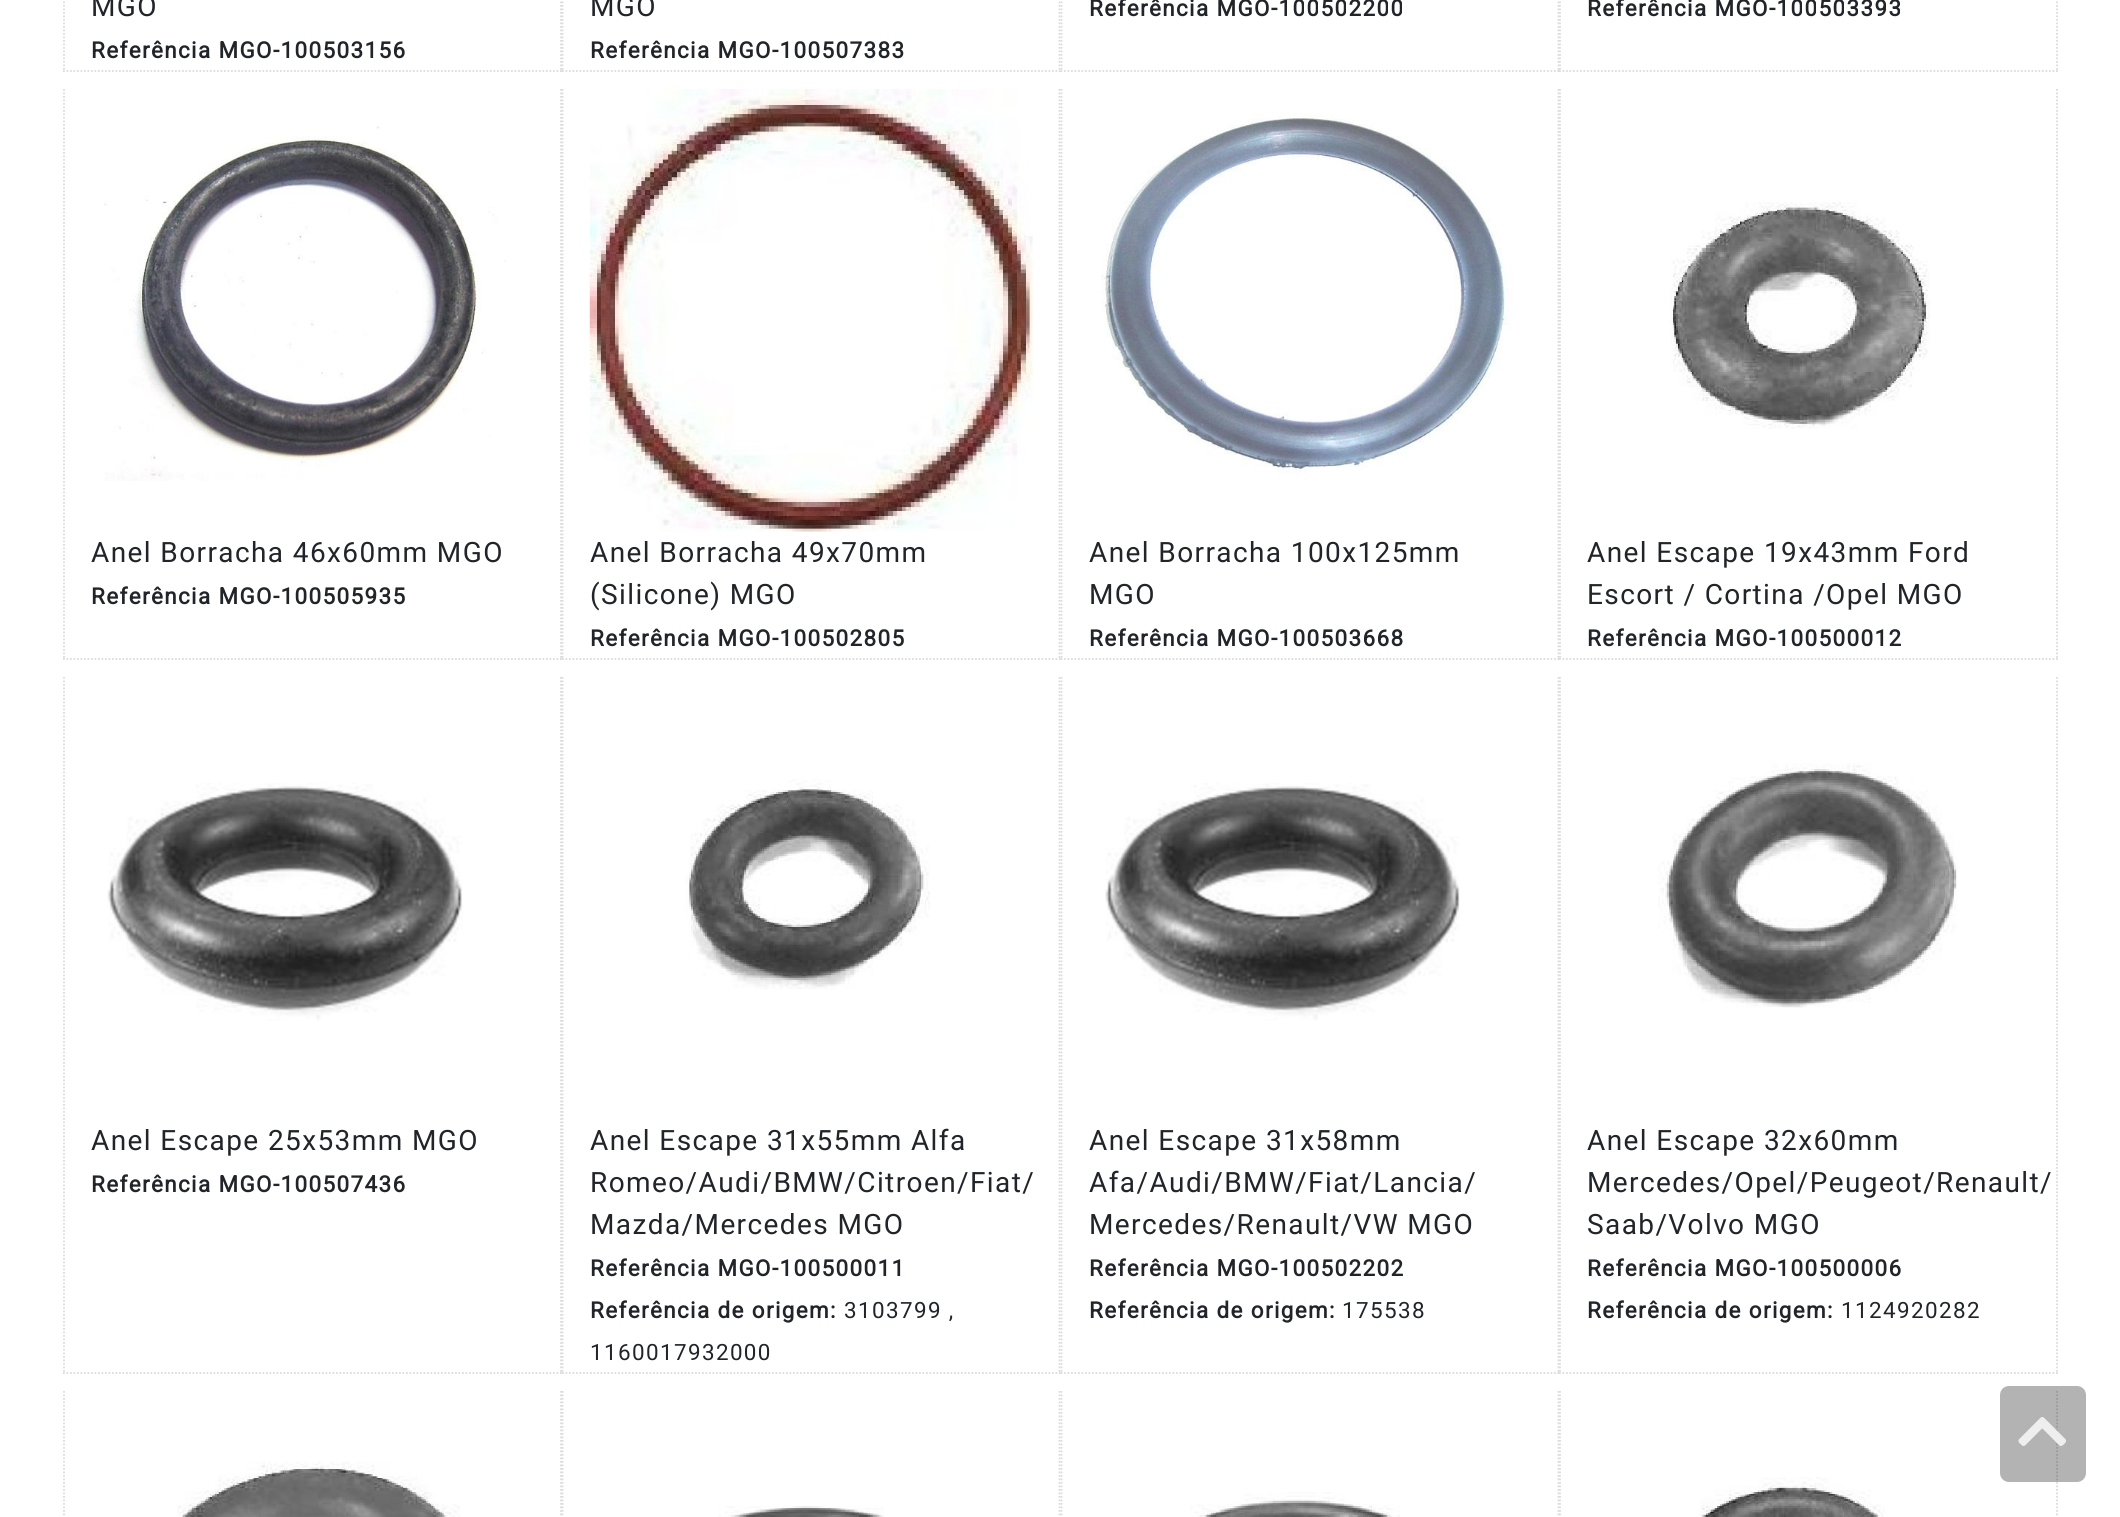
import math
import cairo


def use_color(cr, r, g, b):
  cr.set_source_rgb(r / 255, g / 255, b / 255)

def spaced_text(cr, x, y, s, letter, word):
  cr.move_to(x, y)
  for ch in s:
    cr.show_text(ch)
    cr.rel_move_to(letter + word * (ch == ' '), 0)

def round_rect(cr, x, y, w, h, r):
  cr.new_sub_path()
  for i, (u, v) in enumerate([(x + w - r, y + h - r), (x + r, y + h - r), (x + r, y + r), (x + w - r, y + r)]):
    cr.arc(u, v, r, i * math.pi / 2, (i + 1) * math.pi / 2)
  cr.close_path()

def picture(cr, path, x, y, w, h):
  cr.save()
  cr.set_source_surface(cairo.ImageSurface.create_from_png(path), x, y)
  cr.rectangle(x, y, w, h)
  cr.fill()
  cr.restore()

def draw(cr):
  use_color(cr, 255, 255, 255)
  cr.paint()
  cr.new_path()
  cr.move_to(561, -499)
  cr.line_to(561, 72)
  use_color(cr, 219, 219, 219)
  cr.set_line_width(1.8)
  cr.set_dash([1.75, 1.75])
  cr.stroke()
  cr.new_path()
  cr.move_to(63, 71)
  cr.line_to(562, 71)
  cr.stroke()
  cr.new_path()
  cr.move_to(64, -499)
  cr.line_to(64, 72)
  cr.stroke()
  cr.new_path()
  cr.move_to(1059.5, -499)
  cr.line_to(1059.5, 72)
  cr.stroke()
  cr.new_path()
  cr.move_to(562, 71)
  cr.line_to(1060.5, 71)
  cr.stroke()
  cr.new_path()
  cr.move_to(562.5, -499)
  cr.line_to(562.5, 72)
  cr.stroke()
  cr.new_path()
  cr.move_to(1558.5, -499)
  cr.line_to(1558.5, 72)
  cr.stroke()
  cr.new_path()
  cr.move_to(1060.5, 71)
  cr.line_to(1559, 71)
  cr.stroke()
  cr.new_path()
  cr.move_to(1061.5, -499)
  cr.line_to(1061.5, 72)
  cr.stroke()
  cr.new_path()
  cr.move_to(2057, -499)
  cr.line_to(2057, 72)
  cr.stroke()
  cr.new_path()
  cr.move_to(1559, 71)
  cr.line_to(2058, 71)
  cr.stroke()
  cr.new_path()
  cr.move_to(1560, -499)
  cr.line_to(1560, 72)
  cr.stroke()
  cr.new_path()
  cr.move_to(561, 89)
  cr.line_to(561, 660)
  cr.stroke()
  cr.new_path()
  cr.move_to(63, 659)
  cr.line_to(562, 659)
  cr.stroke()
  cr.new_path()
  cr.move_to(64, 89)
  cr.line_to(64, 660)
  cr.stroke()
  picture(cr, "img_01.png", 104, 126, 402, 355)
  cr.new_path()
  cr.move_to(1059.5, 89)
  cr.line_to(1059.5, 660)
  cr.stroke()
  cr.new_path()
  cr.move_to(562, 659)
  cr.line_to(1060.5, 659)
  cr.stroke()
  cr.new_path()
  cr.move_to(562.5, 89)
  cr.line_to(562.5, 660)
  cr.stroke()
  picture(cr, "img_02.png", 589, 89, 444, 443)
  cr.new_path()
  cr.move_to(1558.5, 89)
  cr.line_to(1558.5, 660)
  cr.stroke()
  cr.new_path()
  cr.move_to(1060.5, 659)
  cr.line_to(1559, 659)
  cr.stroke()
  cr.new_path()
  cr.move_to(1061.5, 89)
  cr.line_to(1061.5, 660)
  cr.stroke()
  picture(cr, "img_03.png", 1101, 113, 412, 361)
  cr.new_path()
  cr.move_to(2057, 89)
  cr.line_to(2057, 660)
  cr.stroke()
  cr.new_path()
  cr.move_to(1559, 659)
  cr.line_to(2058, 659)
  cr.stroke()
  cr.new_path()
  cr.move_to(1560, 89)
  cr.line_to(1560, 660)
  cr.stroke()
  picture(cr, "img_04.png", 1670, 202, 260, 227)
  cr.new_path()
  cr.move_to(561, 677)
  cr.line_to(561, 1374)
  cr.stroke()
  cr.new_path()
  cr.move_to(63, 1373)
  cr.line_to(562, 1373)
  cr.stroke()
  cr.new_path()
  cr.move_to(64, 677)
  cr.line_to(64, 1374)
  cr.stroke()
  picture(cr, "img_05.png", 107, 783, 356, 238)
  cr.new_path()
  cr.move_to(1059.5, 677)
  cr.line_to(1059.5, 1374)
  cr.stroke()
  cr.new_path()
  cr.move_to(562, 1373)
  cr.line_to(1060.5, 1373)
  cr.stroke()
  cr.new_path()
  cr.move_to(562.5, 677)
  cr.line_to(562.5, 1374)
  cr.stroke()
  picture(cr, "img_06.png", 685, 779, 245, 210)
  cr.new_path()
  cr.move_to(1558.5, 677)
  cr.line_to(1558.5, 1374)
  cr.stroke()
  cr.new_path()
  cr.move_to(1060.5, 1373)
  cr.line_to(1559, 1373)
  cr.stroke()
  cr.new_path()
  cr.move_to(1061.5, 677)
  cr.line_to(1061.5, 1374)
  cr.stroke()
  picture(cr, "img_07.png", 1105, 783, 355, 238)
  cr.new_path()
  cr.move_to(2057, 677)
  cr.line_to(2057, 1374)
  cr.stroke()
  cr.new_path()
  cr.move_to(1559, 1373)
  cr.line_to(2058, 1373)
  cr.stroke()
  cr.new_path()
  cr.move_to(1560, 677)
  cr.line_to(1560, 1374)
  cr.stroke()
  picture(cr, "img_08.png", 1658, 763, 300, 245)
  cr.new_path()
  cr.move_to(561, 1391)
  cr.line_to(561, 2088)
  cr.stroke()
  cr.new_path()
  cr.move_to(64, 1391)
  cr.line_to(64, 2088)
  cr.stroke()
  picture(cr, "img_09.png", 177, 1461, 283, 56)
  cr.new_path()
  cr.move_to(1059.5, 1391)
  cr.line_to(1059.5, 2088)
  cr.stroke()
  cr.new_path()
  cr.move_to(562.5, 1391)
  cr.line_to(562.5, 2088)
  cr.stroke()
  picture(cr, "img_10.png", 718, 1506, 166, 11)
  cr.new_path()
  cr.move_to(1558.5, 1391)
  cr.line_to(1558.5, 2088)
  cr.stroke()
  cr.new_path()
  cr.move_to(1061.5, 1391)
  cr.line_to(1061.5, 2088)
  cr.stroke()
  picture(cr, "img_11.png", 1190, 1492, 210, 25)
  cr.new_path()
  cr.move_to(2057, 1391)
  cr.line_to(2057, 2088)
  cr.stroke()
  cr.new_path()
  cr.move_to(1560, 1391)
  cr.line_to(1560, 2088)
  cr.stroke()
  picture(cr, "img_12.png", 1699, 1477, 186, 40)
  cr.set_source_rgba(0, 0, 0, 0.3)
  round_rect(cr, 2000, 1386, 86, 96, 9)
  cr.fill()
  picture(cr, "img_13.png", 2018, 1417, 48, 29)
  cr.select_font_face("Roboto")
  cr.set_font_size(28)
  use_color(cr, 33, 37, 41)
  spaced_text(cr, 91, 16, "MGO", 1.4, 0)
  cr.select_font_face("Roboto", cairo.FONT_SLANT_NORMAL, cairo.FONT_WEIGHT_BOLD)
  cr.set_font_size(22.4)
  spaced_text(cr, 91, 58, "Referência MGO-100503156", 1.4, 0)
  cr.select_font_face("Roboto")
  cr.set_font_size(28)
  spaced_text(cr, 590, 16, "MGO", 1.4, 0)
  cr.select_font_face("Roboto", cairo.FONT_SLANT_NORMAL, cairo.FONT_WEIGHT_BOLD)
  cr.set_font_size(22.4)
  spaced_text(cr, 590, 58, "Referência MGO-100507383", 1.4, 0)
  spaced_text(cr, 1089, 16, "Referência MGO-100502200", 1.4, 0)
  spaced_text(cr, 1587, 16, "Referência MGO-100503393", 1.4, 0)
  cr.select_font_face("Roboto")
  cr.set_font_size(28)
  spaced_text(cr, 91, 562, "Anel Borracha 46x60mm MGO", 1.4, 0)
  cr.select_font_face("Roboto", cairo.FONT_SLANT_NORMAL, cairo.FONT_WEIGHT_BOLD)
  cr.set_font_size(22.4)
  spaced_text(cr, 91, 604, "Referência MGO-100505935", 1.4, 0)
  cr.select_font_face("Roboto")
  cr.set_font_size(28)
  spaced_text(cr, 590, 562, "Anel Borracha 49x70mm", 1.4, 0)
  spaced_text(cr, 590, 604, "(Silicone) MGO", 1.4, 0)
  cr.select_font_face("Roboto", cairo.FONT_SLANT_NORMAL, cairo.FONT_WEIGHT_BOLD)
  cr.set_font_size(22.4)
  spaced_text(cr, 590, 646, "Referência MGO-100502805", 1.4, 0)
  cr.select_font_face("Roboto")
  cr.set_font_size(28)
  spaced_text(cr, 1089, 562, "Anel Borracha 100x125mm", 1.4, 0)
  spaced_text(cr, 1089, 604, "MGO", 1.4, 0)
  cr.select_font_face("Roboto", cairo.FONT_SLANT_NORMAL, cairo.FONT_WEIGHT_BOLD)
  cr.set_font_size(22.4)
  spaced_text(cr, 1089, 646, "Referência MGO-100503668", 1.4, 0)
  cr.select_font_face("Roboto")
  cr.set_font_size(28)
  spaced_text(cr, 1587, 562, "Anel Escape 19x43mm Ford", 1.4, 0)
  spaced_text(cr, 1587, 604, "Escort / Cortina /Opel MGO", 1.4, 0)
  cr.select_font_face("Roboto", cairo.FONT_SLANT_NORMAL, cairo.FONT_WEIGHT_BOLD)
  cr.set_font_size(22.4)
  spaced_text(cr, 1587, 646, "Referência MGO-100500012", 1.4, 0)
  cr.select_font_face("Roboto")
  cr.set_font_size(28)
  spaced_text(cr, 91, 1150, "Anel Escape 25x53mm MGO", 1.4, 0)
  cr.select_font_face("Roboto", cairo.FONT_SLANT_NORMAL, cairo.FONT_WEIGHT_BOLD)
  cr.set_font_size(22.4)
  spaced_text(cr, 91, 1192, "Referência MGO-100507436", 1.4, 0)
  cr.select_font_face("Roboto")
  cr.set_font_size(28)
  spaced_text(cr, 590, 1150, "Anel Escape 31x55mm Alfa", 1.4, 0)
  spaced_text(cr, 590, 1192, "Romeo/Audi/BMW/Citroen/Fiat/", 1.4, 0)
  spaced_text(cr, 590, 1234, "Mazda/Mercedes MGO", 1.4, 0)
  cr.select_font_face("Roboto", cairo.FONT_SLANT_NORMAL, cairo.FONT_WEIGHT_BOLD)
  cr.set_font_size(22.4)
  spaced_text(cr, 590, 1276, "Referência MGO-100500011", 1.4, 0)
  spaced_text(cr, 590, 1318, "Referência de origem:", 1.4, 0)
  cr.select_font_face("Roboto")
  spaced_text(cr, 844, 1318, "3103799 ,", 1.4, 0)
  spaced_text(cr, 590, 1360, "1160017932000", 1.4, 0)
  cr.set_font_size(28)
  spaced_text(cr, 1089, 1150, "Anel Escape 31x58mm", 1.4, 0)
  spaced_text(cr, 1089, 1192, "Afa/Audi/BMW/Fiat/Lancia/", 1.4, 0)
  spaced_text(cr, 1089, 1234, "Mercedes/Renault/VW MGO", 1.4, 0)
  cr.select_font_face("Roboto", cairo.FONT_SLANT_NORMAL, cairo.FONT_WEIGHT_BOLD)
  cr.set_font_size(22.4)
  spaced_text(cr, 1089, 1276, "Referência MGO-100502202", 1.4, 0)
  spaced_text(cr, 1089, 1318, "Referência de origem:", 1.4, 0)
  cr.select_font_face("Roboto")
  spaced_text(cr, 1342, 1318, "175538", 1.4, 0)
  cr.set_font_size(28)
  spaced_text(cr, 1587, 1150, "Anel Escape 32x60mm", 1.4, 0)
  spaced_text(cr, 1587, 1192, "Mercedes/Opel/Peugeot/Renault/", 1.4, 0)
  spaced_text(cr, 1587, 1234, "Saab/Volvo MGO", 1.4, 0)
  cr.select_font_face("Roboto", cairo.FONT_SLANT_NORMAL, cairo.FONT_WEIGHT_BOLD)
  cr.set_font_size(22.4)
  spaced_text(cr, 1587, 1276, "Referência MGO-100500006", 1.4, 0)
  spaced_text(cr, 1587, 1318, "Referência de origem:", 1.4, 0)
  cr.select_font_face("Roboto")
  spaced_text(cr, 1841, 1318, "1124920282", 1.4, 0)


surface = cairo.ImageSurface(cairo.FORMAT_RGB24, 2120, 1517)
cr = cairo.Context(surface)
options = cairo.FontOptions()
options.set_hint_metrics(cairo.HINT_METRICS_OFF)
options.set_hint_style(cairo.HINT_STYLE_NONE)
cr.set_font_options(options)
cr.set_miter_limit(4)
draw(cr)
surface.write_to_png("out.png")
